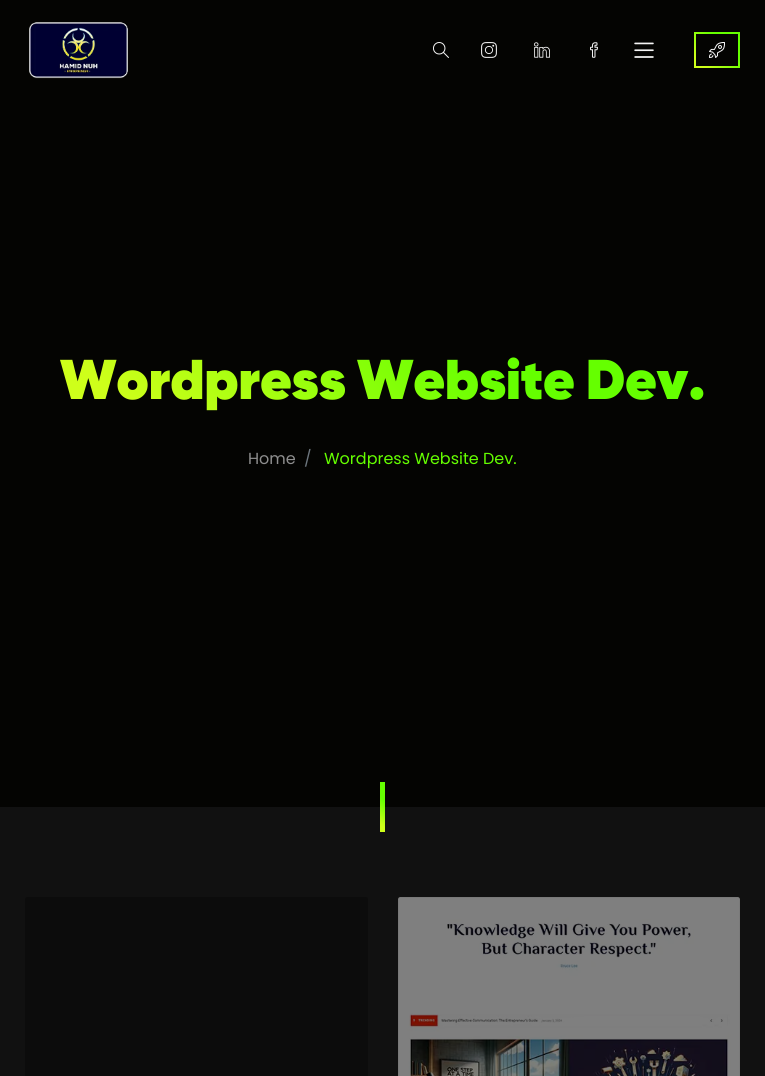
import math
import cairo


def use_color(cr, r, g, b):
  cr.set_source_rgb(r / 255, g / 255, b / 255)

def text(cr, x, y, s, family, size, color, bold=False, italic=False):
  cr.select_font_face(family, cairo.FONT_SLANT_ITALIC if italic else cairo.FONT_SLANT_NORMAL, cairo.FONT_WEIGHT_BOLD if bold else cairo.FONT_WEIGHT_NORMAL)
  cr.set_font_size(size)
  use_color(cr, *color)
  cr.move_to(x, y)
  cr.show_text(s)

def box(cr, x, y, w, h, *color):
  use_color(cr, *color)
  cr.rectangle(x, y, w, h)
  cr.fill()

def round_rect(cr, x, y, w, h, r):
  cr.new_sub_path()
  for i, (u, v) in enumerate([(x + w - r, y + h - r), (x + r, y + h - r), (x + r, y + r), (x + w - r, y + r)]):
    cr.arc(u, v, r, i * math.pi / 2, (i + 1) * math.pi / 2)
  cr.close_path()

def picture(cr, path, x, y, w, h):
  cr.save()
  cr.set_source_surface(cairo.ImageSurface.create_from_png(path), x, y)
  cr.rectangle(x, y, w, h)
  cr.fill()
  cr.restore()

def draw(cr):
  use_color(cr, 17, 17, 17)
  cr.paint()
  box(cr, 0, 0, 765, 807, 4, 4, 2)
  picture(cr, "img_01.png", 29, 22, 99, 57)
  picture(cr, "img_02.png", 433, 42, 16, 16)
  picture(cr, "img_03.png", 481, 42, 16, 16)
  picture(cr, "img_04.png", 534, 42, 16, 16)
  picture(cr, "img_05.png", 590, 42, 8, 16)
  picture(cr, "img_06.png", 634, 42, 20, 16)
  gradient = cairo.LinearGradient(697, 71, 738, 30)
  gradient.add_color_stop_rgba(0.15, 0.808, 1, 0.102, 1)
  gradient.add_color_stop_rgba(0.65, 0.396, 1, 0, 1)
  cr.set_source(gradient)
  cr.rectangle(694, 32, 46, 36)
  cr.fill()
  box(cr, 696, 34, 42, 32, 4, 4, 2)
  picture(cr, "img_07.png", 709, 42, 16, 16)
  gradient = cairo.LinearGradient(369, 821, 396, 793)
  gradient.add_color_stop_rgba(0.15, 0.808, 1, 0.102, 1)
  gradient.add_color_stop_rgba(0.65, 0.396, 1, 0, 1)
  cr.set_source(gradient)
  cr.rectangle(380, 782, 5, 50)
  cr.fill()
  use_color(cr, 12, 12, 12)
  round_rect(cr, 25, 897, 343, 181, 2)
  cr.fill()
  picture(cr, "img_08.png", 398, 897, 342, 179)
  cr.set_source_rgba(0, 0, 0, 0.5)
  round_rect(cr, 398, 897, 342, 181, 2)
  cr.fill()
  cr.select_font_face("Gilroy Black")
  cr.set_font_size(56)
  gradient = cairo.LinearGradient(179, 583, 586, 176)
  gradient.add_color_stop_rgba(0.15, 0.808, 1, 0.102, 1)
  gradient.add_color_stop_rgba(0.65, 0.396, 1, 0, 1)
  cr.set_source(gradient)
  cr.move_to(60, 399)
  cr.show_text("Wordpress Website Dev.")
  text(cr, 248, 464, "Home", "Poppins", 16, (142, 142, 142))
  text(cr, 304, 464, "/", "Poppins", 16, (108, 117, 125))
  text(cr, 324, 464, "Wordpress Website Dev.", "Poppins", 16, (101, 255, 0))


surface = cairo.ImageSurface(cairo.FORMAT_RGB24, 765, 1076)
cr = cairo.Context(surface)
options = cairo.FontOptions()
options.set_hint_metrics(cairo.HINT_METRICS_OFF)
options.set_hint_style(cairo.HINT_STYLE_NONE)
cr.set_font_options(options)
cr.set_miter_limit(4)
draw(cr)
surface.write_to_png("out.png")
